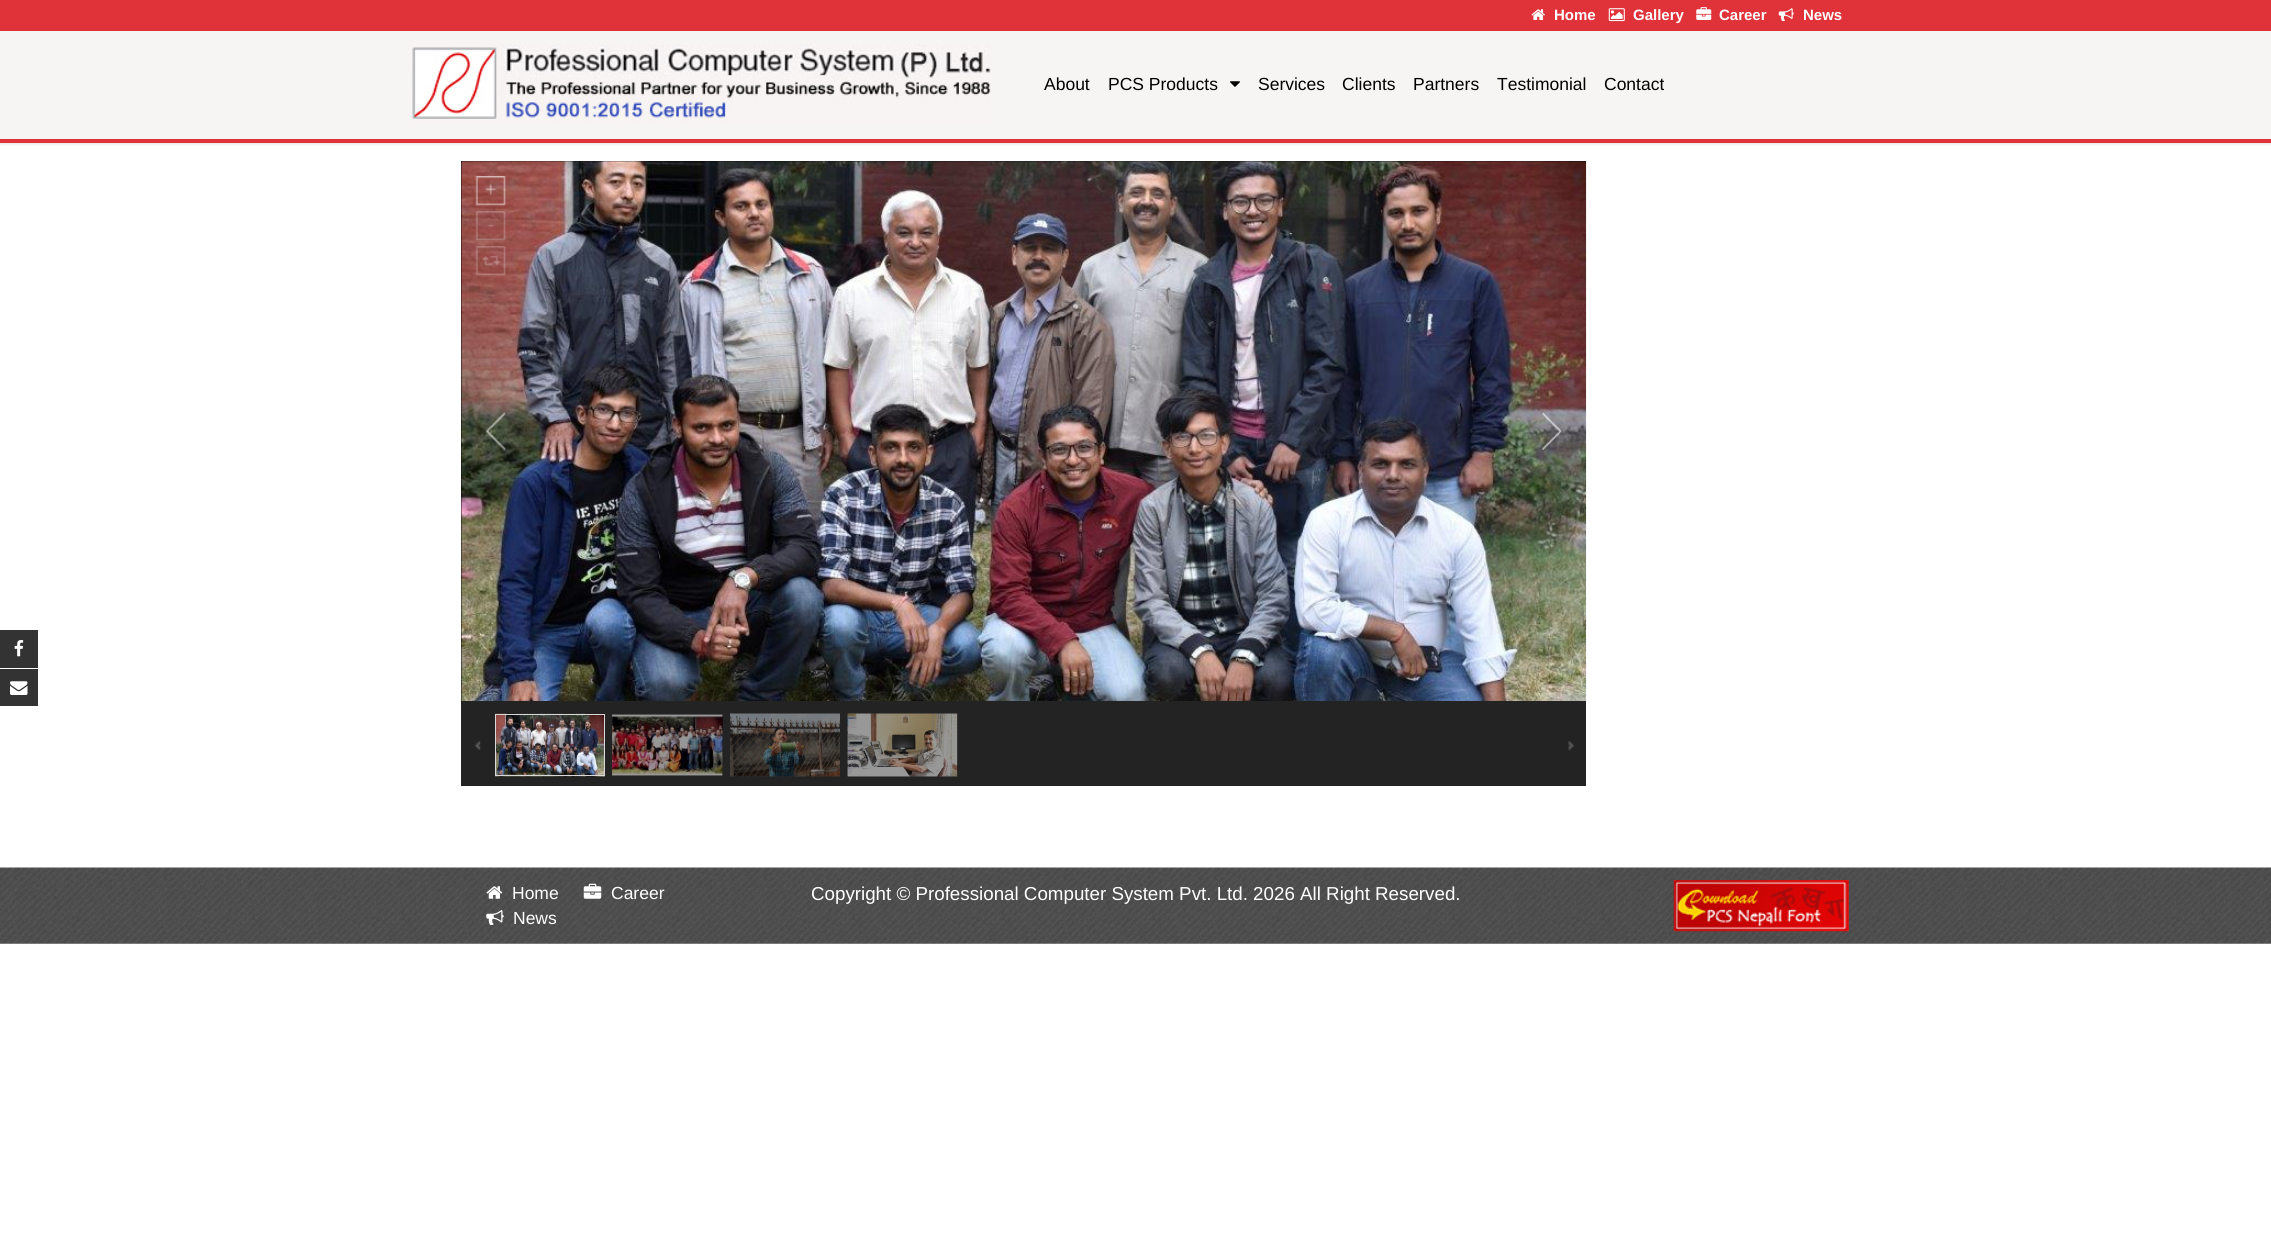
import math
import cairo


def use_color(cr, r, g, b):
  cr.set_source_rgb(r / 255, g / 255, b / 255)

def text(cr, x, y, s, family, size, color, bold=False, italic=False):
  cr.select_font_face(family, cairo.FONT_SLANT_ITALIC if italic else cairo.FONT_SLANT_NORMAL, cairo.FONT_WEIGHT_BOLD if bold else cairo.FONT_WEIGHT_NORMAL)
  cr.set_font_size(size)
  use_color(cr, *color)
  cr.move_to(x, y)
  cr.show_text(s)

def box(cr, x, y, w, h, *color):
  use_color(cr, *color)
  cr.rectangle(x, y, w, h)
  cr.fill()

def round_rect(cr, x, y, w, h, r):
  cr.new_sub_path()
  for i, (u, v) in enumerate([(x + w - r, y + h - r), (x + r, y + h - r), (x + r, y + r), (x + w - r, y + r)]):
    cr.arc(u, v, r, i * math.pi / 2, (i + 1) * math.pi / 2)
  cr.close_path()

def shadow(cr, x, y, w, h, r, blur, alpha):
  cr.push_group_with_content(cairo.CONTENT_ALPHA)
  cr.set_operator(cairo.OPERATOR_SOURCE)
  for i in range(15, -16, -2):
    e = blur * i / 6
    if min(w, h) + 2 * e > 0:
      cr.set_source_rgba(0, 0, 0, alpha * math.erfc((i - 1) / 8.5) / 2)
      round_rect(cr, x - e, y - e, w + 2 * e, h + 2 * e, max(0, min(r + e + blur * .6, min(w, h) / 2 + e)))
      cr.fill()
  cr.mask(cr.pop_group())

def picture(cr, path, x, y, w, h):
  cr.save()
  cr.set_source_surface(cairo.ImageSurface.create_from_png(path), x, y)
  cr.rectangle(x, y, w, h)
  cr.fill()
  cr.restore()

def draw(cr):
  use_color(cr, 255, 255, 255)
  cr.paint()
  box(cr, 0, 0, 2271, 31, 223, 50, 57)
  picture(cr, "img_01.png", 1531, 9, 14, 11)
  picture(cr, "img_02.png", 1608, 8, 17, 14)
  picture(cr, "img_03.png", 1696, 7, 16, 13)
  picture(cr, "img_04.png", 1778, 8, 16, 14)
  use_color(cr, 0, 0, 0)
  shadow(cr, 0, 33, 2271, 111, 0, 2, 0.12)
  box(cr, 0, 31, 2271, 108, 247, 244, 244)
  box(cr, 0, 139, 2271, 4, 223, 50, 57)
  picture(cr, "img_05.png", 412, 44, 579, 80)
  picture(cr, "img_06.png", 1230, 81, 10, 6)
  box(cr, 461, 161, 1125, 540, 0, 0, 0)
  picture(cr, "img_07.png", 461, 161, 1126, 540)
  picture(cr, "img_08.png", 475, 176, 31, 30)
  picture(cr, "img_09.png", 475, 211, 31, 30)
  picture(cr, "img_10.png", 475, 246, 31, 30)
  picture(cr, "img_11.png", 485, 412, 21, 39)
  picture(cr, "img_12.png", 1542, 412, 20, 38)
  box(cr, 461, 701, 1125, 85, 35, 35, 35)
  box(cr, 957, 714, 1, 62, 21, 21, 21)
  box(cr, 722, 714, 1, 62, 21, 21, 21)
  picture(cr, "img_13.png", 474, 741, 7, 9)
  picture(cr, "img_14.png", 495, 713, 110, 64)
  cr.rectangle(495.5, 714.5, 109, 61)
  use_color(cr, 217, 217, 217)
  cr.set_line_width(1)
  cr.stroke()
  picture(cr, "img_15.png", 612, 714, 111, 62)
  picture(cr, "img_16.png", 730, 713, 110, 64)
  picture(cr, "img_17.png", 847, 713, 111, 64)
  picture(cr, "img_18.png", 1568, 741, 7, 10)
  picture(cr, "img_19.png", 0, 867, 2271, 77)
  box(cr, 0, 630, 38, 38, 51, 51, 51)
  picture(cr, "img_20.png", 14, 640, 10, 17)
  box(cr, 0, 669, 38, 37, 51, 51, 51)
  picture(cr, "img_21.png", 10, 681, 18, 14)
  picture(cr, "img_22.png", 486, 886, 17, 13)
  picture(cr, "img_23.png", 583, 883, 19, 16)
  picture(cr, "img_24.png", 486, 910, 18, 15)
  picture(cr, "img_25.png", 1673, 880, 176, 52)
  text(cr, 1554, 20, "Home", "Liberation Sans", 15, (255, 255, 255), bold=True)
  text(cr, 1633, 20, "Gallery", "Liberation Sans", 15, (255, 255, 255), bold=True)
  text(cr, 1719, 20, "Career", "Liberation Sans", 15, (255, 255, 255), bold=True)
  text(cr, 1803, 20, "News", "Liberation Sans", 15, (255, 255, 255), bold=True)
  text(cr, 1044, 90, "About", "Liberation Sans", 17.5, (0, 0, 0))
  text(cr, 1108, 90, "PCS Products", "Liberation Sans", 17.5, (0, 0, 0))
  text(cr, 1258, 90, "Services", "Liberation Sans", 17.5, (0, 0, 0))
  text(cr, 1342, 90, "Clients", "Liberation Sans", 17.5, (0, 0, 0))
  text(cr, 1413, 90, "Partners", "Liberation Sans", 17.5, (0, 0, 0))
  text(cr, 1497, 90, "Testimonial", "Liberation Sans", 17.5, (0, 0, 0))
  text(cr, 1604, 90, "Contact", "Liberation Sans", 17.5, (0, 0, 0))
  text(cr, 512, 899, "Home", "Liberation Sans", 17.5, (255, 255, 255))
  text(cr, 611, 899, "Career", "Liberation Sans", 17.5, (255, 255, 255))
  text(cr, 513, 924, "News", "Liberation Sans", 17.5, (255, 255, 255))
  text(cr, 811, 900, "Copyright © Professional Computer System Pvt. Ltd. 2026 All Right Reserved.", "Liberation Sans", 18.75, (255, 255, 255))


surface = cairo.ImageSurface(cairo.FORMAT_RGB24, 2271, 1258)
cr = cairo.Context(surface)
options = cairo.FontOptions()
options.set_hint_metrics(cairo.HINT_METRICS_OFF)
options.set_hint_style(cairo.HINT_STYLE_NONE)
cr.set_font_options(options)
cr.set_miter_limit(4)
draw(cr)
surface.write_to_png("out.png")
